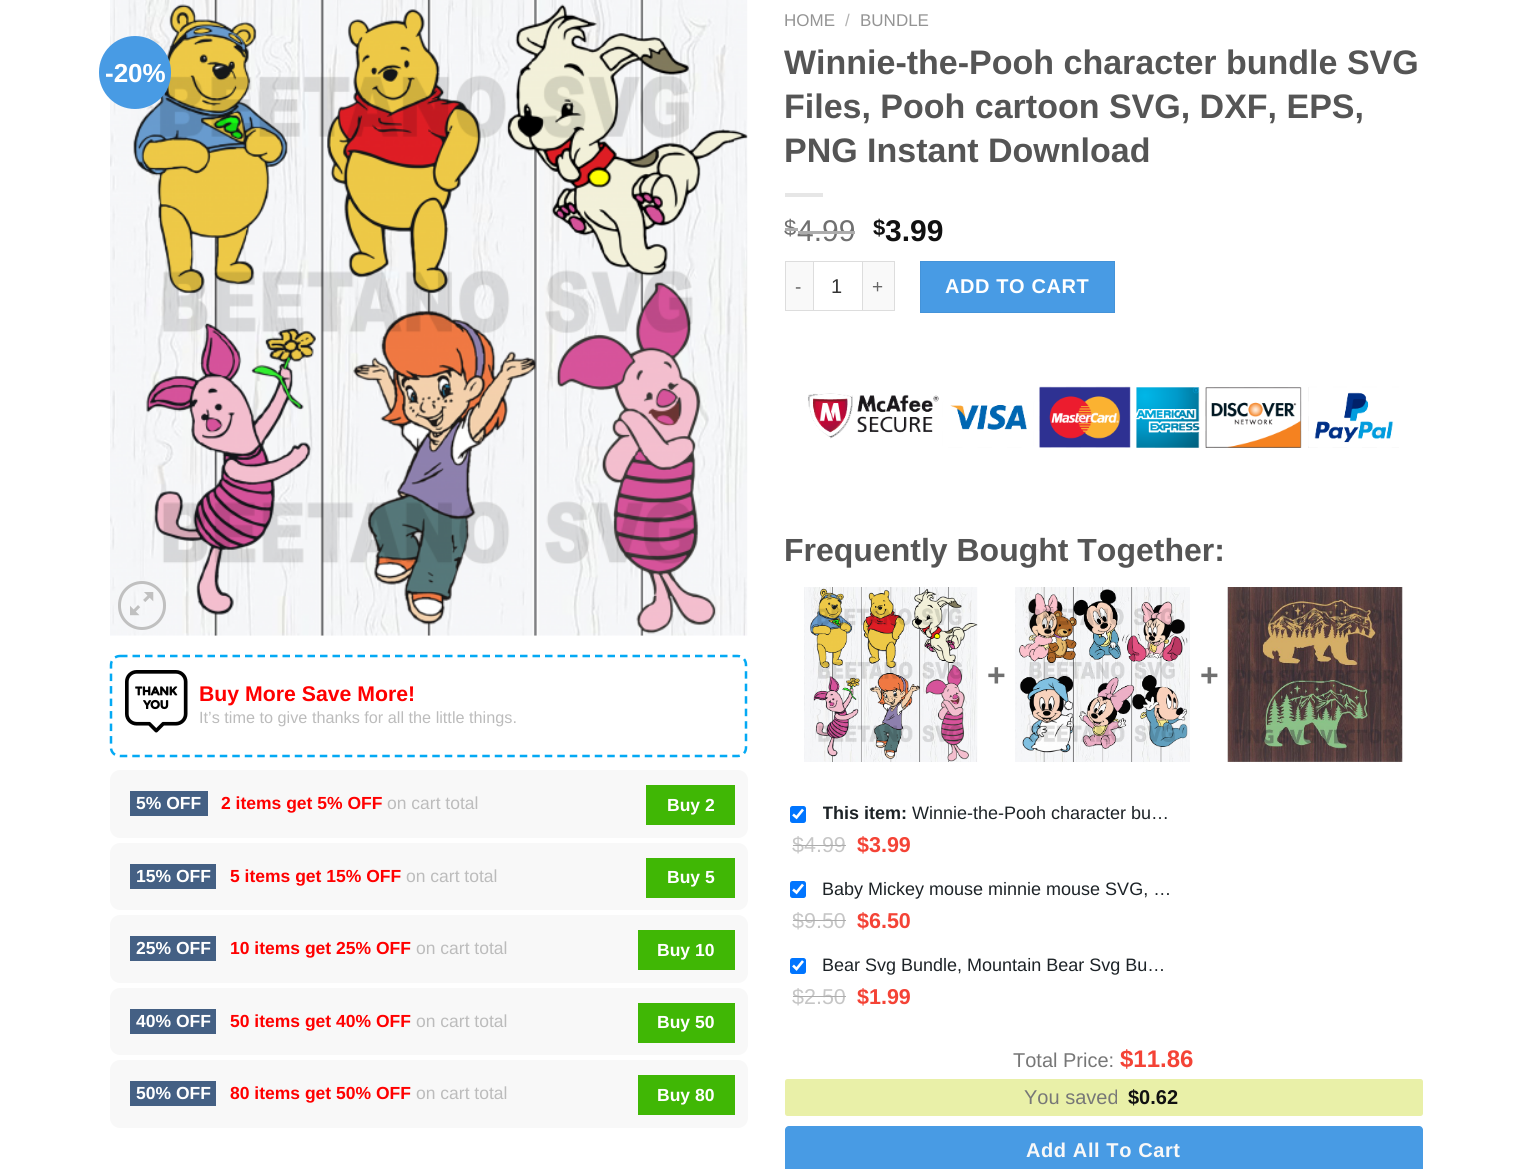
import math
import cairo


def use_color(cr, r, g, b):
  cr.set_source_rgb(r / 255, g / 255, b / 255)

def text(cr, x, y, s, family, size, color, bold=False, italic=False):
  cr.select_font_face(family, cairo.FONT_SLANT_ITALIC if italic else cairo.FONT_SLANT_NORMAL, cairo.FONT_WEIGHT_BOLD if bold else cairo.FONT_WEIGHT_NORMAL)
  cr.set_font_size(size)
  use_color(cr, *color)
  cr.move_to(x, y)
  cr.show_text(s)

def spaced_text(cr, x, y, s, letter, word):
  cr.move_to(x, y)
  for ch in s:
    cr.show_text(ch)
    cr.rel_move_to(letter + word * (ch == ' '), 0)

def box(cr, x, y, w, h, *color):
  use_color(cr, *color)
  cr.rectangle(x, y, w, h)
  cr.fill()

def round_rect(cr, x, y, w, h, r):
  cr.new_sub_path()
  for i, (u, v) in enumerate([(x + w - r, y + h - r), (x + r, y + h - r), (x + r, y + r), (x + w - r, y + r)]):
    cr.arc(u, v, r, i * math.pi / 2, (i + 1) * math.pi / 2)
  cr.close_path()

def picture(cr, path, x, y, w, h):
  cr.save()
  cr.set_source_surface(cairo.ImageSurface.create_from_png(path), x, y)
  cr.rectangle(x, y, w, h)
  cr.fill()
  cr.restore()

def draw(cr):
  use_color(cr, 255, 255, 255)
  cr.paint()
  picture(cr, "img_01.png", 110, 0, 638, 636)
  use_color(cr, 72, 155, 228)
  round_rect(cr, 99, 36, 72, 73, 36)
  cr.fill()
  round_rect(cr, 119.5, 582.5, 45, 46, 22.5)
  use_color(cr, 192, 192, 192)
  cr.set_line_width(3)
  cr.stroke()
  picture(cr, "img_02.png", 130, 592, 24, 24)
  cr.new_path()
  cr.move_to(120, 656)
  cr.line_to(737.5, 656)
  cr.curve_to(742.5, 656, 746, 660, 746, 665)
  cr.line_to(746, 747.5)
  cr.curve_to(746, 752.5, 742.5, 756, 737.5, 756)
  cr.line_to(120, 756)
  cr.curve_to(115, 756, 111, 752.5, 111, 747.5)
  cr.line_to(111, 665)
  cr.curve_to(111, 660, 115, 656, 120, 656)
  cr.close_path()
  use_color(cr, 3, 169, 244)
  cr.set_line_width(2.5)
  cr.set_dash([7.5, 5])
  cr.stroke()
  picture(cr, "img_03.png", 125, 670, 63, 63)
  use_color(cr, 248, 248, 248)
  round_rect(cr, 110, 770, 638, 68, 10)
  cr.fill()
  box(cr, 130, 791, 78, 25, 68, 96, 132)
  box(cr, 646, 785, 89, 40, 64, 183, 5)
  use_color(cr, 248, 248, 248)
  round_rect(cr, 110, 843, 638, 67, 10)
  cr.fill()
  box(cr, 130, 864, 86, 25, 68, 96, 132)
  box(cr, 646, 858, 89, 40, 64, 183, 5)
  use_color(cr, 248, 248, 248)
  round_rect(cr, 110, 915, 638, 68, 10)
  cr.fill()
  box(cr, 130, 936, 86, 25, 68, 96, 132)
  box(cr, 638, 930, 97, 40, 64, 183, 5)
  use_color(cr, 248, 248, 248)
  round_rect(cr, 110, 988, 638, 67, 10)
  cr.fill()
  box(cr, 130, 1009, 86, 25, 68, 96, 132)
  box(cr, 638, 1003, 97, 40, 64, 183, 5)
  use_color(cr, 248, 248, 248)
  round_rect(cr, 110, 1060, 638, 68, 10)
  cr.fill()
  box(cr, 130, 1081, 86, 25, 68, 96, 132)
  box(cr, 638, 1075, 97, 40, 64, 183, 5)
  box(cr, 785, 193, 38, 4, 230, 230, 230)
  box(cr, 786, 262, 27, 48, 249, 249, 249)
  box(cr, 785, 261, 28, 1, 221, 221, 221)
  box(cr, 785, 310, 28, 1, 221, 221, 221)
  box(cr, 785, 261, 1, 50, 221, 221, 221)
  cr.rectangle(813.5, 261.5, 49, 49)
  cr.set_line_width(1)
  cr.set_dash([])
  cr.stroke()
  box(cr, 863, 262, 31, 48, 249, 249, 249)
  box(cr, 863, 261, 32, 1, 221, 221, 221)
  box(cr, 894, 261, 1, 50, 221, 221, 221)
  box(cr, 863, 310, 32, 1, 221, 221, 221)
  use_color(cr, 72, 155, 228)
  cr.rectangle(920.5, 261.5, 194, 51)
  cr.fill_preserve()
  use_color(cr, 68, 147, 217)
  cr.stroke()
  picture(cr, "img_04.png", 807, 386, 592, 62)
  picture(cr, "img_05.png", 804, 587, 174, 175)
  picture(cr, "img_06.png", 1015, 587, 175, 175)
  picture(cr, "img_07.png", 1227, 587, 176, 175)
  use_color(cr, 0, 117, 255)
  round_rect(cr, 790, 806, 16, 17, 2.5)
  cr.fill()
  cr.new_path()
  cr.move_to(793, 814.5)
  cr.line_to(796.5, 817.5)
  cr.line_to(803, 809.5)
  use_color(cr, 255, 255, 255)
  cr.set_line_width(2.6)
  cr.stroke()
  use_color(cr, 0, 117, 255)
  round_rect(cr, 790, 881, 16, 17, 2.5)
  cr.fill()
  cr.new_path()
  cr.move_to(793, 889.5)
  cr.line_to(796.5, 892.5)
  cr.line_to(803, 884.5)
  use_color(cr, 255, 255, 255)
  cr.stroke()
  use_color(cr, 0, 117, 255)
  round_rect(cr, 790, 958, 16, 16, 2.5)
  cr.fill()
  cr.new_path()
  cr.move_to(793, 965.5)
  cr.line_to(796.5, 969)
  cr.line_to(803, 961)
  use_color(cr, 255, 255, 255)
  cr.stroke()
  use_color(cr, 233, 240, 168)
  round_rect(cr, 785, 1079, 638, 37, 2.5)
  cr.fill()
  use_color(cr, 72, 155, 228)
  round_rect(cr, 785, 1126, 638, 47, 4)
  cr.fill()
  text(cr, 105, 82, "-20%", "Liberation Sans", 26, (255, 255, 255), bold=True)
  text(cr, 199, 701, "Buy More Save More!", "Liberation Sans", 21.25, (255, 0, 0), bold=True)
  text(cr, 199, 723, "It’s time to give thanks for all the little things.", "Liberation Sans", 16.25, (188, 188, 188))
  text(cr, 136, 809, "5% OFF", "Liberation Sans", 17.5, (255, 255, 255), bold=True)
  text(cr, 221, 809, "2 items get 5% OFF", "Liberation Sans", 17.5, (255, 0, 0), bold=True)
  text(cr, 387, 809, "on cart total", "Liberation Sans", 17.5, (188, 188, 188))
  text(cr, 667, 811, "Buy 2", "Liberation Sans", 17.5, (255, 255, 255), bold=True)
  text(cr, 136, 882, "15% OFF", "Liberation Sans", 17.5, (255, 255, 255), bold=True)
  text(cr, 230, 882, "5 items get 15% OFF", "Liberation Sans", 17.5, (255, 0, 0), bold=True)
  text(cr, 406, 882, "on cart total", "Liberation Sans", 17.5, (188, 188, 188))
  text(cr, 667, 883, "Buy 5", "Liberation Sans", 17.5, (255, 255, 255), bold=True)
  text(cr, 136, 954, "25% OFF", "Liberation Sans", 17.5, (255, 255, 255), bold=True)
  text(cr, 230, 954, "10 items get 25% OFF", "Liberation Sans", 17.5, (255, 0, 0), bold=True)
  text(cr, 416, 954, "on cart total", "Liberation Sans", 17.5, (188, 188, 188))
  text(cr, 657, 956, "Buy 10", "Liberation Sans", 17.5, (255, 255, 255), bold=True)
  text(cr, 136, 1027, "40% OFF", "Liberation Sans", 17.5, (255, 255, 255), bold=True)
  text(cr, 230, 1027, "50 items get 40% OFF", "Liberation Sans", 17.5, (255, 0, 0), bold=True)
  text(cr, 416, 1027, "on cart total", "Liberation Sans", 17.5, (188, 188, 188))
  text(cr, 657, 1028, "Buy 50", "Liberation Sans", 17.5, (255, 255, 255), bold=True)
  text(cr, 136, 1099, "50% OFF", "Liberation Sans", 17.5, (255, 255, 255), bold=True)
  text(cr, 230, 1099, "80 items get 50% OFF", "Liberation Sans", 17.5, (255, 0, 0), bold=True)
  text(cr, 416, 1099, "on cart total", "Liberation Sans", 17.5, (188, 188, 188))
  text(cr, 657, 1101, "Buy 80", "Liberation Sans", 17.5, (255, 255, 255), bold=True)
  text(cr, 784, 26, "HOME", "Liberation Sans", 17, (148, 148, 148))
  text(cr, 845, 26, "/", "Liberation Sans", 17, (178, 178, 178))
  text(cr, 860, 26, "BUNDLE", "Liberation Sans", 17, (148, 148, 148))
  text(cr, 784, 74, "Winnie-the-Pooh character bundle SVG", "Liberation Sans", 34, (85, 85, 85), bold=True)
  text(cr, 784, 118, "Files, Pooh cartoon SVG, DXF, EPS,", "Liberation Sans", 34, (85, 85, 85), bold=True)
  text(cr, 784, 162, "PNG Instant Download", "Liberation Sans", 34, (85, 85, 85), bold=True)
  text(cr, 784, 235, "$", "Liberation Sans", 22, (112, 112, 112))
  box(cr, 785, 228, 13, 3, 173, 173, 173)
  text(cr, 797, 241, "4.99", "Liberation Sans", 30, (112, 112, 112))
  box(cr, 798, 231, 57, 3, 173, 173, 173)
  text(cr, 873, 235, "$", "Liberation Sans", 22, (17, 17, 17), bold=True)
  text(cr, 885, 241, "3.99", "Liberation Sans", 30, (17, 17, 17), bold=True)
  cr.select_font_face("Liberation Sans")
  cr.set_font_size(19)
  use_color(cr, 102, 102, 102)
  spaced_text(cr, 795, 293, "-", 1, 0)
  text(cr, 831, 293, "1", "Liberation Sans", 20, (51, 51, 51))
  cr.set_font_size(19)
  use_color(cr, 102, 102, 102)
  spaced_text(cr, 872, 293, "+", 1, 0)
  cr.select_font_face("Liberation Sans", cairo.FONT_SLANT_NORMAL, cairo.FONT_WEIGHT_BOLD)
  cr.set_font_size(20)
  use_color(cr, 255, 255, 255)
  spaced_text(cr, 945, 293, "ADD TO CART", 0.6, 0)
  text(cr, 784, 561, "Frequently Bought Together:", "Liberation Sans", 32, (85, 85, 85), bold=True)
  text(cr, 987, 686, "+", "Liberation Sans", 32, (112, 112, 112), bold=True)
  text(cr, 1200, 686, "+", "Liberation Sans", 32, (112, 112, 112), bold=True)
  cr.save()
  cr.rectangle(823, 800, 350, 29)
  cr.clip()
  text(cr, 822, 819, "This item:", "Liberation Sans", 18, (29, 35, 39), bold=True)
  cr.restore()
  text(cr, 912, 819, "Winnie-the-Pooh character bu…", "Liberation Sans", 18, (29, 35, 39))
  text(cr, 792, 852, "$4.99", "Liberation Sans", 21.5, (198, 198, 198))
  box(cr, 793, 845, 53, 1, 173, 173, 173)
  text(cr, 857, 852, "$3.99", "Liberation Sans", 21.5, (244, 67, 54), bold=True)
  text(cr, 822, 895, "Baby Mickey mouse minnie mouse SVG, …", "Liberation Sans", 18, (29, 35, 39))
  text(cr, 792, 928, "$9.50", "Liberation Sans", 21.5, (198, 198, 198))
  box(cr, 793, 920, 53, 1, 173, 173, 173)
  text(cr, 857, 928, "$6.50", "Liberation Sans", 21.5, (244, 67, 54), bold=True)
  text(cr, 822, 971, "Bear Svg Bundle, Mountain Bear Svg Bu…", "Liberation Sans", 18, (29, 35, 39))
  text(cr, 792, 1004, "$2.50", "Liberation Sans", 21.5, (198, 198, 198))
  box(cr, 793, 996, 53, 1, 173, 173, 173)
  text(cr, 857, 1004, "$1.99", "Liberation Sans", 21.5, (244, 67, 54), bold=True)
  text(cr, 1013, 1067, "Total Price:", "Liberation Sans", 20, (119, 119, 119))
  text(cr, 1120, 1067, "$11.86", "Liberation Sans", 24, (244, 67, 54), bold=True)
  text(cr, 1024, 1104, "You saved", "Liberation Sans", 20, (119, 119, 119))
  text(cr, 1128, 1104, "$0.62", "Liberation Sans", 20, (17, 17, 17), bold=True)
  use_color(cr, 248, 248, 248)
  spaced_text(cr, 1026, 1157, "Add All To Cart", 0.6, 0)


surface = cairo.ImageSurface(cairo.FORMAT_RGB24, 1531, 1169)
cr = cairo.Context(surface)
options = cairo.FontOptions()
options.set_hint_metrics(cairo.HINT_METRICS_OFF)
options.set_hint_style(cairo.HINT_STYLE_NONE)
cr.set_font_options(options)
cr.set_miter_limit(4)
draw(cr)
surface.write_to_png("out.png")
